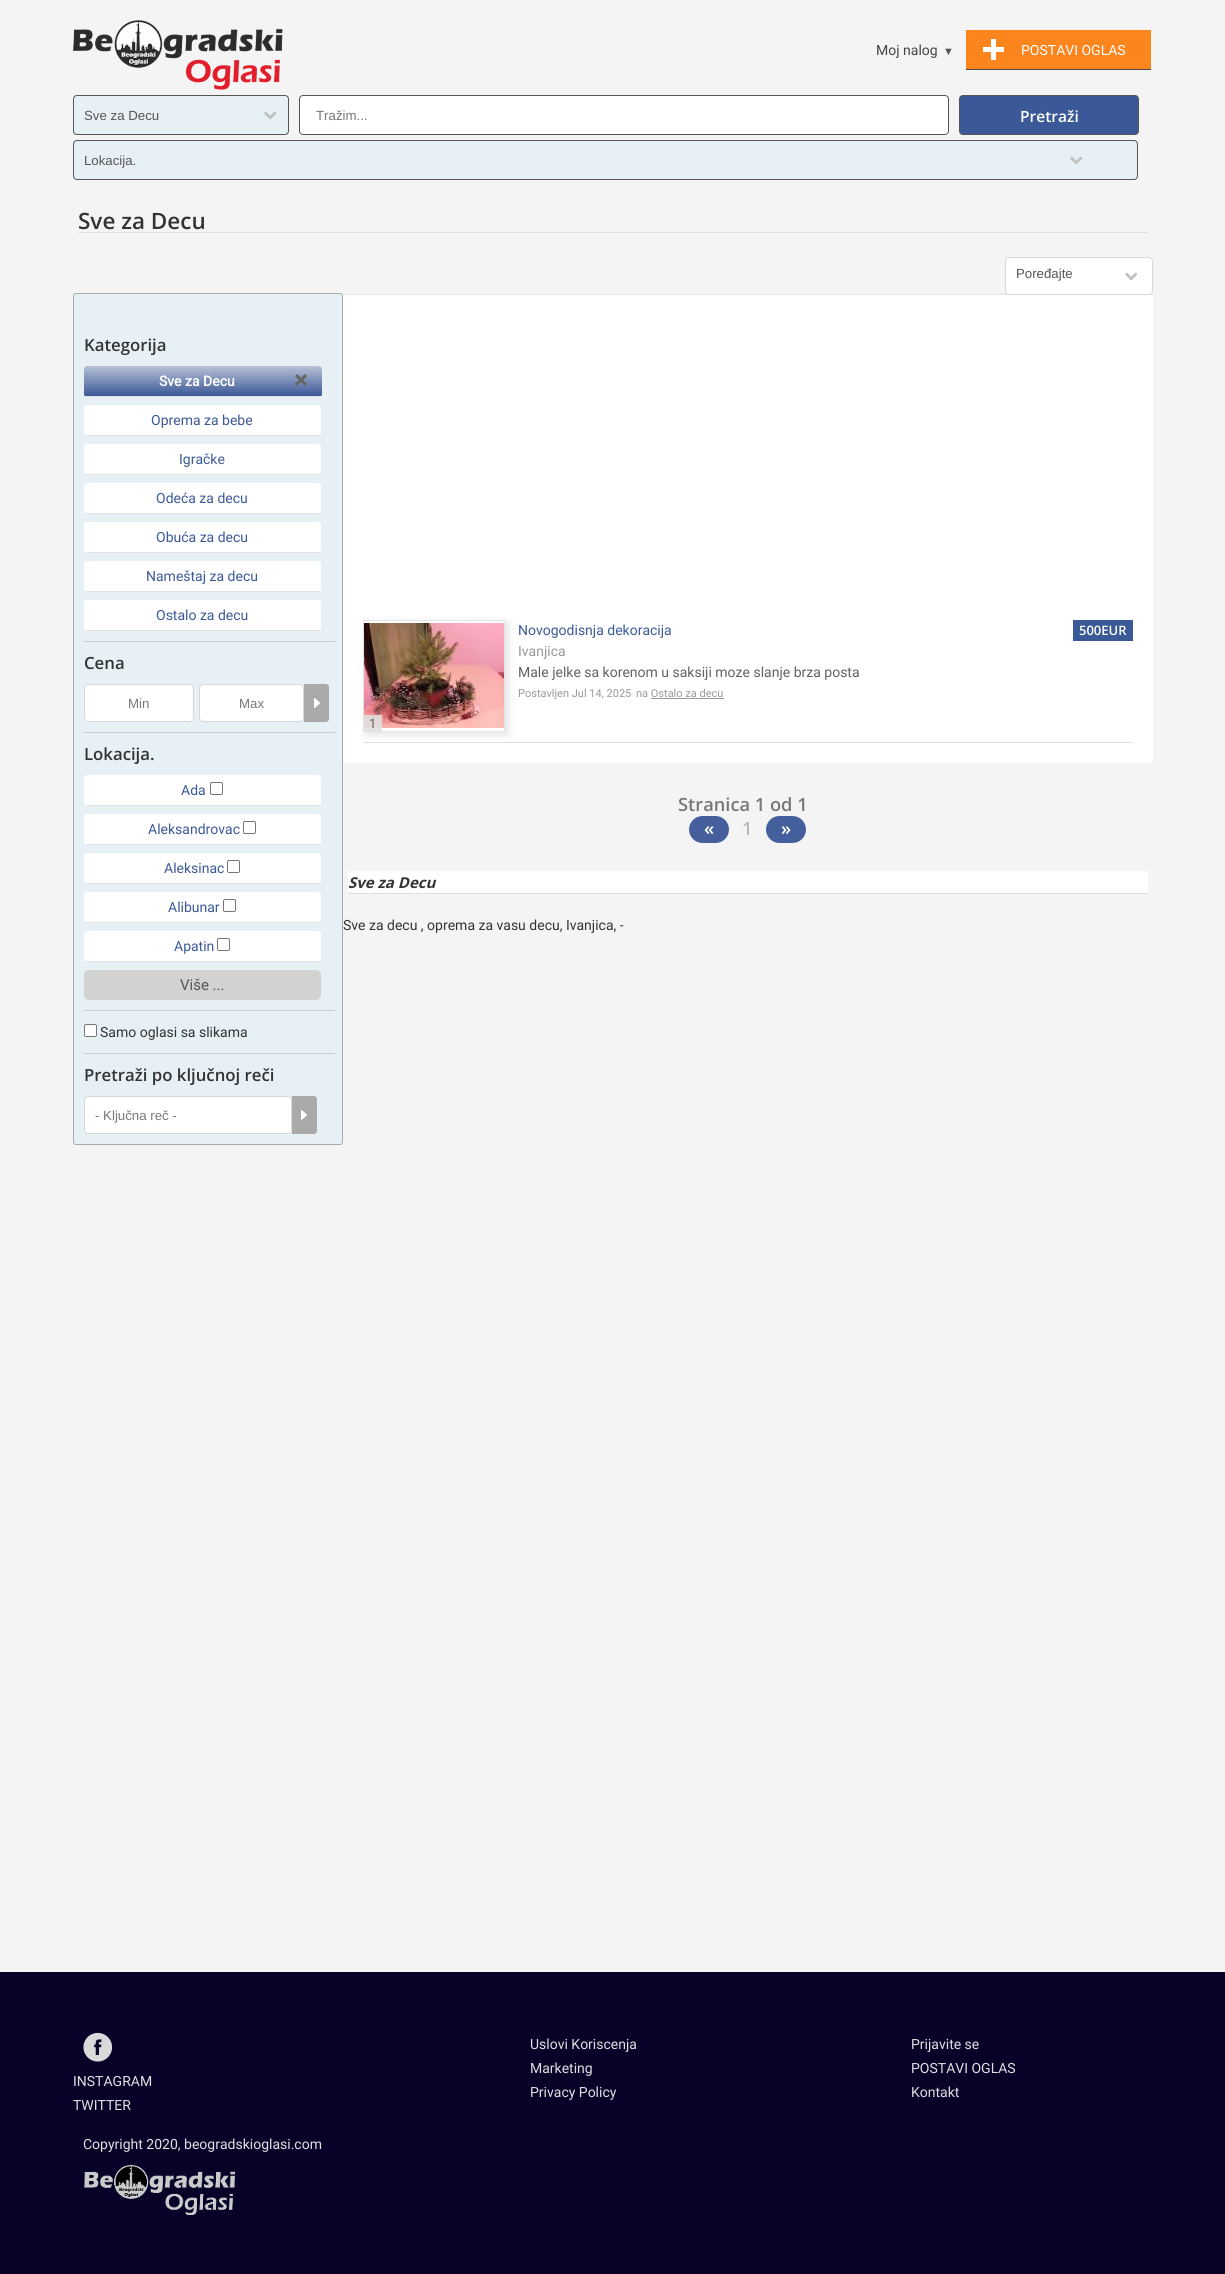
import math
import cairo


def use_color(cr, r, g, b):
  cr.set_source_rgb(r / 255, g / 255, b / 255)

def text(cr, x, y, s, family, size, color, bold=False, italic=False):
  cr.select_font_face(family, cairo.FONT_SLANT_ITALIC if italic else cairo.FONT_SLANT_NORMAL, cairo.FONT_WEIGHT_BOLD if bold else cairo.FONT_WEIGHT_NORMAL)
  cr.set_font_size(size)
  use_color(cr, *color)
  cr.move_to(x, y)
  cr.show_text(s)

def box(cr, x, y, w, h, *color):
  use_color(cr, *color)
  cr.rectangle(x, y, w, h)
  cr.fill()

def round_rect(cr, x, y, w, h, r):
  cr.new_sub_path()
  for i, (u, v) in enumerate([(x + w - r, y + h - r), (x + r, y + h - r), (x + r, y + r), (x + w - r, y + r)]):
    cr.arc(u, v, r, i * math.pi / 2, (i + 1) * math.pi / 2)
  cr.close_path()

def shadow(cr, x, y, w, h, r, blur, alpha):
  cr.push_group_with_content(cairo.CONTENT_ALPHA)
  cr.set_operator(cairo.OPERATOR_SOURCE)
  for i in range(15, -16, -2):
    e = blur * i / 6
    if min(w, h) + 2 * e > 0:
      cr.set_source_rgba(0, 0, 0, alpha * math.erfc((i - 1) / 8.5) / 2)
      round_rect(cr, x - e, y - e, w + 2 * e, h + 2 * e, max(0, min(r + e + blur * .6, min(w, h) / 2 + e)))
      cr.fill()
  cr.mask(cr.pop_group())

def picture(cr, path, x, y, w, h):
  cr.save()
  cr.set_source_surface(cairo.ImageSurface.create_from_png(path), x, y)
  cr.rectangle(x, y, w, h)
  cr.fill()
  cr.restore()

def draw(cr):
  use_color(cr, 244, 244, 244)
  cr.paint()
  picture(cr, "img_01.png", 73, 20, 210, 70)
  box(cr, 966, 30, 185, 39, 253, 133, 29)
  box(cr, 966, 69, 185, 1, 75, 75, 75)
  box(cr, 991, 39, 5, 21, 255, 255, 255)
  box(cr, 983, 47, 21, 5, 255, 255, 255)
  use_color(cr, 231, 240, 245)
  round_rect(cr, 73, 95, 216, 40, 4)
  cr.fill()
  picture(cr, "img_02.png", 264, 111, 13, 9)
  round_rect(cr, 73.5, 95.5, 215, 39, 3.5)
  use_color(cr, 85, 85, 85)
  cr.set_line_width(1)
  cr.stroke()
  box(cr, 299, 95, 650, 40, 255, 255, 255)
  round_rect(cr, 299.5, 95.5, 649, 39, 3.5)
  use_color(cr, 85, 85, 85)
  cr.stroke()
  use_color(cr, 59, 89, 152)
  round_rect(cr, 959.5, 95.5, 179, 39, 3.5)
  cr.fill_preserve()
  use_color(cr, 85, 85, 85)
  cr.stroke()
  use_color(cr, 231, 240, 245)
  round_rect(cr, 73, 140, 1065, 40, 4)
  cr.fill()
  picture(cr, "img_02.png", 1070, 156, 13, 9)
  round_rect(cr, 73.5, 140.5, 1064, 39, 3.5)
  use_color(cr, 85, 85, 85)
  cr.stroke()
  box(cr, 78, 232, 1070, 1, 223, 223, 221)
  use_color(cr, 231, 240, 245)
  round_rect(cr, 73.5, 293.5, 269, 851, 2.5)
  cr.fill_preserve()
  use_color(cr, 170, 170, 170)
  cr.stroke()
  use_color(cr, 255, 255, 255)
  round_rect(cr, 84, 366, 238, 31, 3)
  cr.fill()
  cr.save()
  round_rect(cr, 84, 366, 238, 31, 3)
  cr.clip()
  gradient = cairo.LinearGradient(203, 396, 203, 351)
  gradient.add_color_stop_rgba(0, 0.231, 0.349, 0.596, 1)
  gradient.add_color_stop_rgba(1, 0.961, 0.961, 0.961, 1)
  cr.set_source(gradient)
  cr.new_path()
  cr.move_to(87, 366)
  cr.line_to(319, 366)
  cr.curve_to(320.5, 366, 322, 367.5, 322, 369)
  cr.line_to(322, 396)
  cr.line_to(84, 396)
  cr.line_to(84, 369)
  cr.curve_to(84, 367.5, 85.5, 366, 87, 366)
  cr.close_path()
  cr.fill()
  gradient = cairo.LinearGradient(203, 426, 203, 381)
  gradient.add_color_stop_rgba(0, 0.231, 0.349, 0.596, 1)
  gradient.add_color_stop_rgba(1, 0.961, 0.961, 0.961, 1)
  cr.set_source(gradient)
  cr.rectangle(84, 396, 238, 1)
  cr.fill()
  cr.restore()
  box(cr, 86, 396, 235, 1, 226, 226, 226)
  picture(cr, "img_03.png", 295, 374, 12, 12)
  use_color(cr, 255, 255, 255)
  round_rect(cr, 84, 405, 237, 31, 3)
  cr.fill()
  box(cr, 86, 435, 234, 1, 226, 226, 226)
  use_color(cr, 255, 255, 255)
  round_rect(cr, 84, 444, 237, 31, 3)
  cr.fill()
  box(cr, 86, 474, 234, 1, 226, 226, 226)
  use_color(cr, 255, 255, 255)
  round_rect(cr, 84, 483, 237, 31, 3)
  cr.fill()
  box(cr, 86, 513, 234, 1, 226, 226, 226)
  use_color(cr, 255, 255, 255)
  round_rect(cr, 84, 522, 237, 31, 3)
  cr.fill()
  box(cr, 86, 552, 234, 1, 226, 226, 226)
  use_color(cr, 255, 255, 255)
  round_rect(cr, 84, 561, 237, 31, 3)
  cr.fill()
  box(cr, 86, 591, 234, 1, 226, 226, 226)
  use_color(cr, 255, 255, 255)
  round_rect(cr, 84, 600, 237, 31, 3)
  cr.fill()
  box(cr, 86, 630, 234, 1, 226, 226, 226)
  box(cr, 84, 641, 251, 1, 204, 204, 204)
  use_color(cr, 255, 255, 255)
  round_rect(cr, 84.5, 684.5, 109, 37, 3.5)
  cr.fill_preserve()
  use_color(cr, 215, 215, 215)
  cr.stroke()
  use_color(cr, 255, 255, 255)
  round_rect(cr, 199.5, 684.5, 104, 37, 3.5)
  cr.fill_preserve()
  use_color(cr, 215, 215, 215)
  cr.stroke()
  use_color(cr, 170, 170, 170)
  cr.new_path()
  cr.move_to(304, 684)
  cr.line_to(326, 684)
  cr.curve_to(327.5, 684, 329, 685.5, 329, 687)
  cr.line_to(329, 719)
  cr.curve_to(329, 720.5, 327.5, 722, 326, 722)
  cr.line_to(304, 722)
  cr.close_path()
  cr.fill()
  picture(cr, "img_04.png", 314, 698, 6, 10)
  box(cr, 84, 732, 251, 1, 204, 204, 204)
  use_color(cr, 255, 255, 255)
  round_rect(cr, 84, 775, 237, 31, 3)
  cr.fill()
  box(cr, 86, 805, 234, 1, 226, 226, 226)
  round_rect(cr, 210.5, 782.5, 12, 12, 1.5)
  use_color(cr, 118, 118, 118)
  cr.stroke()
  use_color(cr, 255, 255, 255)
  round_rect(cr, 84, 814, 237, 31, 3)
  cr.fill()
  box(cr, 86, 844, 234, 1, 226, 226, 226)
  round_rect(cr, 243.5, 821.5, 12, 12, 1.5)
  use_color(cr, 118, 118, 118)
  cr.stroke()
  use_color(cr, 255, 255, 255)
  round_rect(cr, 84, 853, 237, 31, 3)
  cr.fill()
  box(cr, 86, 883, 234, 1, 226, 226, 226)
  round_rect(cr, 227.5, 860.5, 12, 12, 1.5)
  use_color(cr, 118, 118, 118)
  cr.stroke()
  use_color(cr, 255, 255, 255)
  round_rect(cr, 84, 892, 237, 31, 3)
  cr.fill()
  box(cr, 86, 922, 234, 1, 226, 226, 226)
  round_rect(cr, 223.5, 899.5, 12, 12, 1.5)
  use_color(cr, 118, 118, 118)
  cr.stroke()
  use_color(cr, 255, 255, 255)
  round_rect(cr, 84, 931, 237, 31, 3)
  cr.fill()
  box(cr, 86, 961, 234, 1, 226, 226, 226)
  round_rect(cr, 217.5, 938.5, 12, 12, 1.5)
  use_color(cr, 118, 118, 118)
  cr.stroke()
  use_color(cr, 210, 210, 210)
  round_rect(cr, 84, 970, 237, 30, 5)
  cr.fill()
  box(cr, 84, 1010, 251, 1, 204, 204, 204)
  use_color(cr, 255, 255, 255)
  round_rect(cr, 84.5, 1024.5, 12, 12, 1.5)
  cr.fill_preserve()
  use_color(cr, 118, 118, 118)
  cr.stroke()
  box(cr, 84, 1053, 251, 1, 204, 204, 204)
  use_color(cr, 255, 255, 255)
  round_rect(cr, 84.5, 1096.5, 207, 37, 3.5)
  cr.fill_preserve()
  use_color(cr, 215, 215, 215)
  cr.stroke()
  use_color(cr, 170, 170, 170)
  cr.new_path()
  cr.move_to(292, 1096)
  cr.line_to(314, 1096)
  cr.curve_to(315.5, 1096, 317, 1097.5, 317, 1099)
  cr.line_to(317, 1131)
  cr.curve_to(317, 1132.5, 315.5, 1134, 314, 1134)
  cr.line_to(292, 1134)
  cr.close_path()
  cr.fill()
  picture(cr, "img_04.png", 301, 1110, 6, 10)
  box(cr, 343, 294, 810, 1, 229, 229, 229)
  use_color(cr, 255, 255, 255)
  round_rect(cr, 1005, 257, 148, 38, 4)
  cr.fill()
  picture(cr, "img_05.png", 1125, 272, 13, 9)
  round_rect(cr, 1005.5, 257.5, 147, 37, 3.5)
  use_color(cr, 215, 215, 215)
  cr.stroke()
  box(cr, 343, 295, 810, 468, 255, 255, 255)
  box(cr, 363, 742, 770, 1, 224, 224, 224)
  box(cr, 651, 698, 73, 1, 153, 153, 153)
  box(cr, 1073, 620, 60, 21, 58, 89, 151)
  cr.save()
  cr.set_fill_rule(cairo.FILL_RULE_EVEN_ODD)
  cr.new_path()
  cr.move_to(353, 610)
  cr.line_to(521, 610)
  cr.line_to(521, 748)
  cr.line_to(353, 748)
  cr.close_path()
  cr.move_to(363, 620)
  cr.line_to(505, 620)
  cr.line_to(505, 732)
  cr.line_to(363, 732)
  cr.close_path()
  cr.clip()
  use_color(cr, 75, 75, 75)
  shadow(cr, 366, 623, 142, 112, 0, 4, 0.15)
  cr.restore()
  cr.rectangle(363.5, 620.5, 141, 111)
  use_color(cr, 229, 229, 229)
  cr.stroke()
  picture(cr, "img_06.png", 364, 623, 140, 105)
  cr.set_source_rgba(0.878, 0.878, 0.878, 0.9)
  cr.rectangle(364, 715, 18, 17)
  cr.fill()
  use_color(cr, 68, 95, 156)
  round_rect(cr, 689, 816, 40, 27, 13.5)
  cr.fill()
  round_rect(cr, 766, 816, 40, 27, 13.5)
  cr.fill()
  box(cr, 348, 871, 800, 22, 255, 255, 255)
  box(cr, 348, 893, 800, 1, 223, 223, 221)
  box(cr, 0, 1972, 1225, 302, 8, 2, 41)
  picture(cr, "img_07.png", 83, 2032, 30, 30)
  picture(cr, "img_08.png", 84, 2165, 151, 50)
  text(cr, 876, 55, "Moj nalog", "Roboto", 14, (68, 68, 68))
  text(cr, 943, 55, "▼", "Liberation Sans", 11, (85, 85, 85))
  text(cr, 1021, 55, "POSTAVI OGLAS", "Roboto", 14, (255, 255, 255))
  text(cr, 84, 120, "Sve za Decu", "Liberation Sans", 13.25, (85, 85, 85))
  text(cr, 316, 120, "Tražim...", "Liberation Sans", 13.25, (119, 119, 119))
  text(cr, 1020, 122, "Pretraži", "Open Sans SemiBold", 15.5, (255, 255, 255))
  text(cr, 84, 165, "Lokacija.", "Liberation Sans", 13.25, (85, 85, 85))
  text(cr, 78, 229, "Sve za Decu", "Open Sans SemiBold", 22.5, (51, 51, 51))
  text(cr, 84, 351, "Kategorija", "Open Sans SemiBold", 16.75, (51, 51, 51))
  text(cr, 159, 386, "Sve za Decu", "Roboto", 14, (255, 255, 255), bold=True)
  text(cr, 151, 425, "Oprema za bebe", "Roboto", 14, (59, 89, 152))
  text(cr, 179, 464, "Igračke", "Roboto", 14, (59, 89, 152))
  text(cr, 156, 503, "Odeća za decu", "Roboto", 14, (59, 89, 152))
  text(cr, 156, 542, "Obuća za decu", "Roboto", 14, (59, 89, 152))
  text(cr, 146, 581, "Nameštaj za decu", "Roboto", 14, (59, 89, 152))
  text(cr, 156, 620, "Ostalo za decu", "Roboto", 14, (59, 89, 152))
  text(cr, 84, 669, "Cena", "Open Sans SemiBold", 16.75, (51, 51, 51))
  text(cr, 128, 708, "Min", "Liberation Sans", 13.25, (119, 119, 119))
  text(cr, 239, 708, "Max", "Liberation Sans", 13.25, (119, 119, 119))
  text(cr, 84, 760, "Lokacija.", "Open Sans SemiBold", 16.75, (51, 51, 51))
  text(cr, 181, 795, "Ada", "Roboto", 14, (59, 89, 152))
  text(cr, 148, 834, "Aleksandrovac", "Roboto", 14, (59, 89, 152))
  text(cr, 164, 873, "Aleksinac", "Roboto", 14, (59, 89, 152))
  text(cr, 168, 912, "Alibunar", "Roboto", 14, (59, 89, 152))
  text(cr, 174, 951, "Apatin", "Roboto", 14, (59, 89, 152))
  text(cr, 180, 990, "Više ...", "Roboto", 15, (85, 85, 85))
  text(cr, 100, 1037, "Samo oglasi sa slikama", "Roboto", 14, (51, 51, 51))
  text(cr, 84, 1081, "Pretraži po ključnoj reči", "Open Sans SemiBold", 16.75, (51, 51, 51))
  text(cr, 95, 1120, "- Ključna reč -", "Liberation Sans", 13.25, (119, 119, 119))
  text(cr, 1016, 278, "Poređajte", "Liberation Sans", 13.25, (85, 85, 85))
  text(cr, 518, 635, "Novogodisnja dekoracija", "Roboto", 14, (59, 89, 152))
  text(cr, 518, 656, "Ivanjica", "Roboto", 14, (153, 153, 153))
  text(cr, 518, 677, "Male jelke sa korenom u saksiji moze slanje brza posta", "Roboto", 14, (99, 98, 98))
  text(cr, 518, 697, "Postavljen Jul 14, 2025", "Roboto", 11, (153, 153, 153))
  text(cr, 636, 697, "na Ostalo za decu", "Roboto", 11, (153, 153, 153))
  text(cr, 1079, 635, "500EUR", "Open Sans SemiBold", 13, (255, 255, 255))
  text(cr, 369, 728, "1", "Roboto", 13, (99, 98, 98))
  text(cr, 678, 811, "Stranica 1 od 1", "Open Sans SemiBold", 18.25, (119, 119, 119))
  text(cr, 704, 835, "«", "Open Sans SemiBold", 18.25, (255, 255, 255))
  text(cr, 742, 835, "1", "Open Sans SemiBold", 18.25, (185, 185, 185))
  text(cr, 781, 835, "»", "Open Sans SemiBold", 18.25, (255, 255, 255))
  text(cr, 348, 888, "Sve za Decu", "Open Sans", 15, (51, 51, 51), bold=True, italic=True)
  text(cr, 343, 930, "Sve za decu , oprema za vasu decu, Ivanjica, -", "Roboto", 14, (51, 51, 51))
  text(cr, 73, 2086, "INSTAGRAM", "Roboto", 14, (224, 224, 224))
  text(cr, 73, 2110, "TWITTER", "Roboto", 14, (224, 224, 224))
  text(cr, 83, 2149, "Copyright 2020, beogradskioglasi.com", "Roboto", 14, (224, 224, 224))
  text(cr, 530, 2049, "Uslovi Koriscenja", "Roboto", 14, (224, 224, 224))
  text(cr, 530, 2073, "Marketing", "Roboto", 14, (224, 224, 224))
  text(cr, 530, 2097, "Privacy Policy", "Roboto", 14, (224, 224, 224))
  text(cr, 911, 2049, "Prijavite se", "Roboto", 14, (224, 224, 224))
  text(cr, 911, 2073, "POSTAVI OGLAS", "Roboto", 14, (224, 224, 224))
  text(cr, 911, 2097, "Kontakt", "Roboto", 14, (224, 224, 224))


surface = cairo.ImageSurface(cairo.FORMAT_RGB24, 1225, 2274)
cr = cairo.Context(surface)
options = cairo.FontOptions()
options.set_hint_metrics(cairo.HINT_METRICS_OFF)
options.set_hint_style(cairo.HINT_STYLE_NONE)
cr.set_font_options(options)
cr.set_miter_limit(4)
draw(cr)
surface.write_to_png("out.png")
